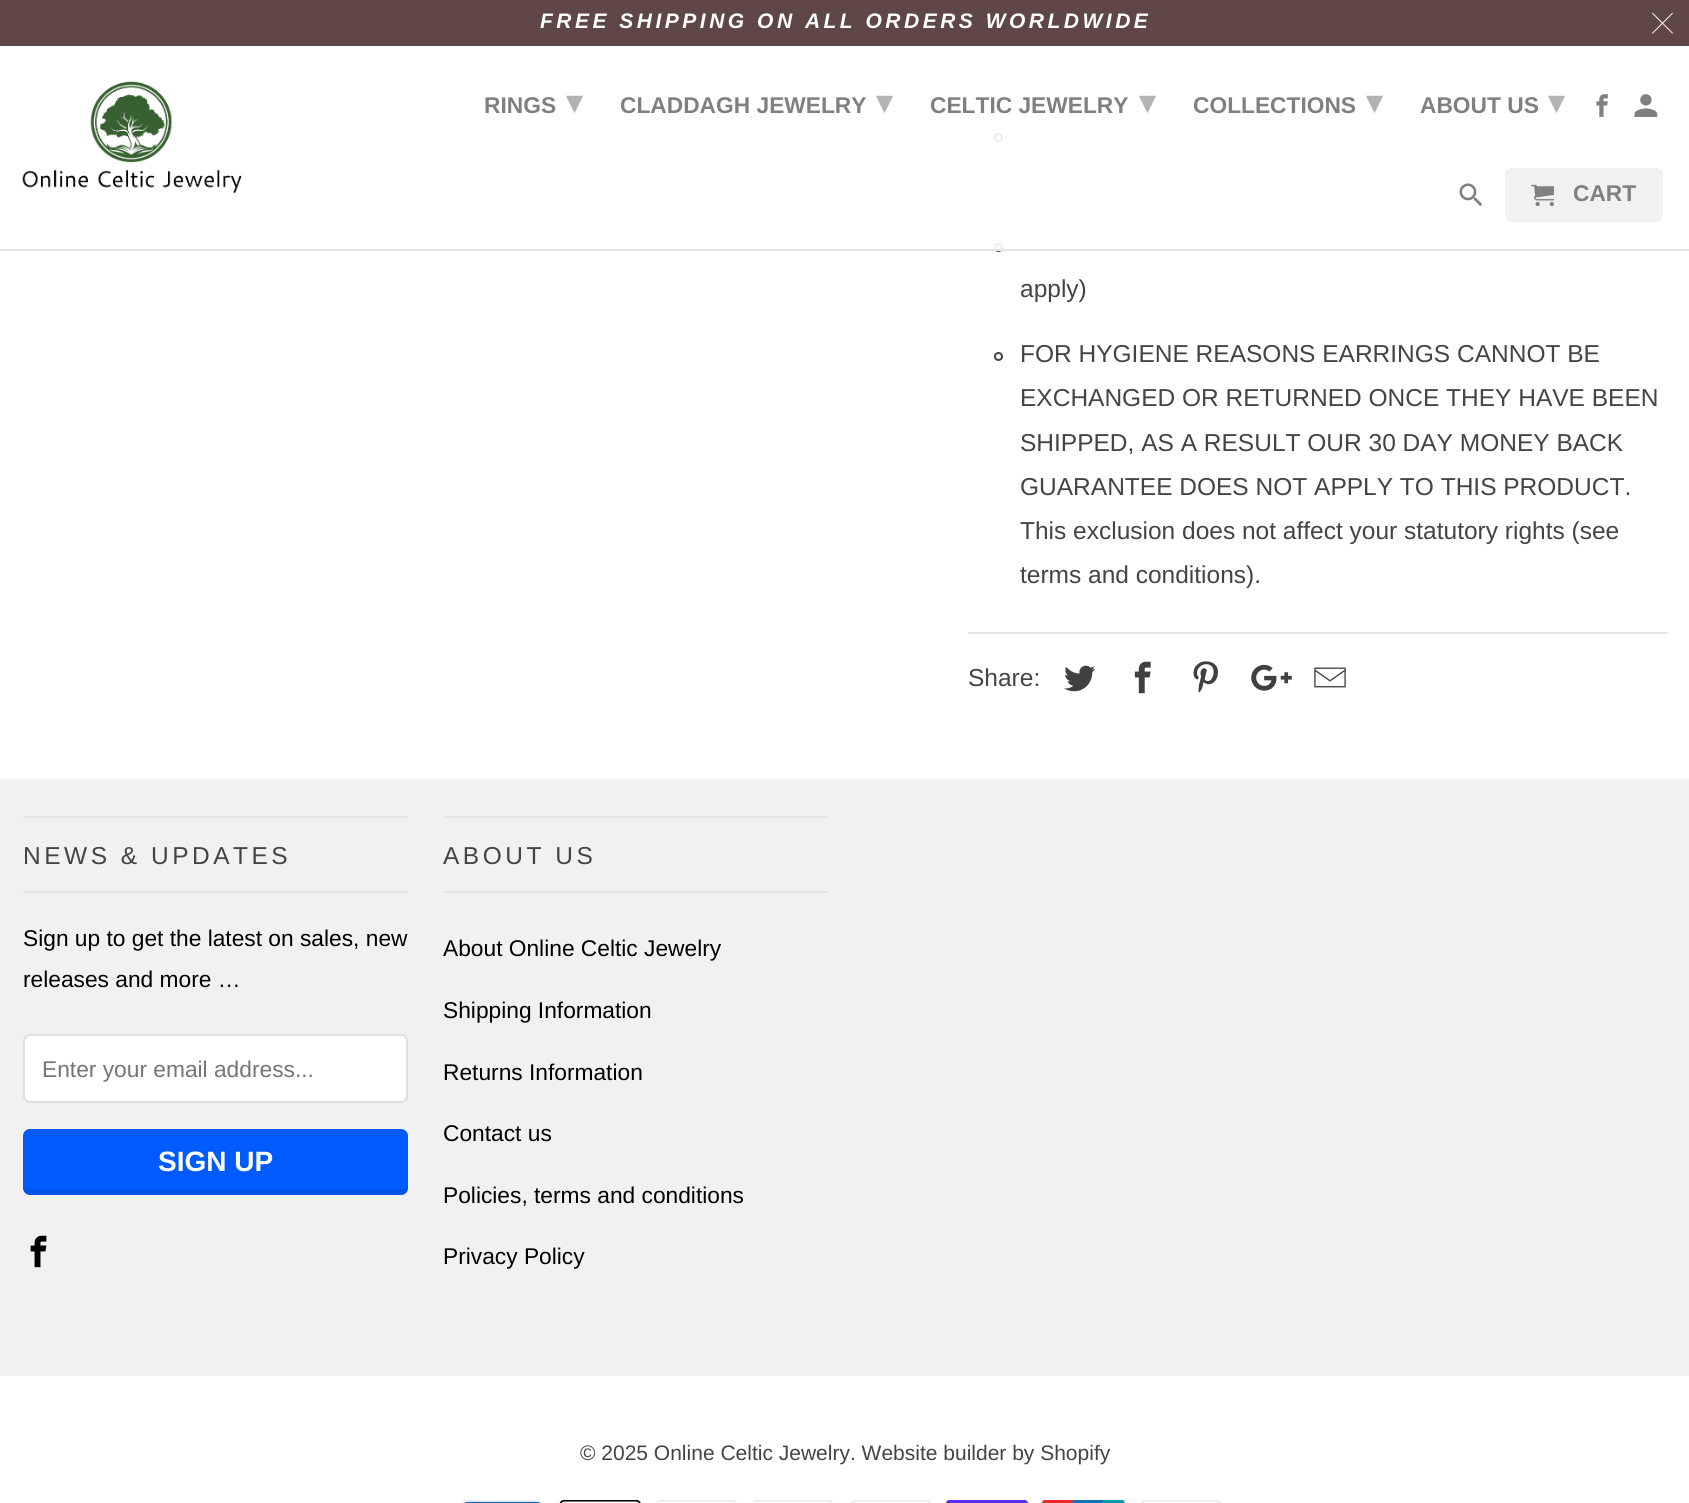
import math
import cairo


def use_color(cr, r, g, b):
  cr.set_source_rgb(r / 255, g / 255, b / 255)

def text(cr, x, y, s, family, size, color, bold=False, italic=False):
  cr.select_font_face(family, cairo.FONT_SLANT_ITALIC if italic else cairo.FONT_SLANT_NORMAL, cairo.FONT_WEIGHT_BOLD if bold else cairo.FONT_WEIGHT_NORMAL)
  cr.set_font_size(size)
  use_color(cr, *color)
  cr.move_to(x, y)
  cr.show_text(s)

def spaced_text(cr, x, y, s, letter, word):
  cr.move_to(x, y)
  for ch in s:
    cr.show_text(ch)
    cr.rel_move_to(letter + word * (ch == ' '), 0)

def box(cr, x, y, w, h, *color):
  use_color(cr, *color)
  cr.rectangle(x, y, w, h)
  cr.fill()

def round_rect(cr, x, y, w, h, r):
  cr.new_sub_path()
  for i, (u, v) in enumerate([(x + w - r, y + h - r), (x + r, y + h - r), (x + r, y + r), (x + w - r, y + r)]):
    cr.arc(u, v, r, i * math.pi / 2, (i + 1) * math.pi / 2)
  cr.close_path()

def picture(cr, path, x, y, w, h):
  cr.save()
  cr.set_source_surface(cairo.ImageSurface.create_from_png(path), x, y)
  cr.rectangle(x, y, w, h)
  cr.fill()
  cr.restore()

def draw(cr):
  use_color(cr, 255, 255, 255)
  cr.paint()
  cr.arc(998.5, 137.5, 3.5, 0, 2 * math.pi)
  use_color(cr, 68, 68, 68)
  cr.stroke()
  cr.arc(998.5, 247.5, 3.5, 0, 2 * math.pi)
  cr.stroke()
  cr.set_source_rgba(1, 1, 1, 0.9)
  cr.rectangle(994, 133, 9, 116)
  cr.fill()
  box(cr, 0, 249, 1689, 2, 229, 229, 229)
  box(cr, 0, 0, 1689, 46, 95, 71, 71)
  picture(cr, "img_01.png", 1652, 12, 21, 22)
  picture(cr, "img_02.png", 22, 81, 220, 112)
  picture(cr, "img_03.png", 1596, 94, 12, 23)
  picture(cr, "img_04.png", 1634, 94, 24, 23)
  picture(cr, "img_05.png", 1459, 183, 24, 23)
  use_color(cr, 241, 241, 241)
  round_rect(cr, 1505, 168, 158, 54, 7)
  cr.fill()
  picture(cr, "img_06.png", 1531, 184, 23, 23)
  cr.arc(998.5, 356.5, 3.5, 0, 2 * math.pi)
  use_color(cr, 68, 68, 68)
  cr.stroke()
  box(cr, 968, 632, 700, 2, 229, 229, 229)
  picture(cr, "img_07.png", 1064, 665, 32, 27)
  picture(cr, "img_08.png", 1134, 661, 17, 33)
  picture(cr, "img_09.png", 1193, 661, 25, 32)
  picture(cr, "img_10.png", 1251, 664, 41, 27)
  picture(cr, "img_11.png", 1314, 667, 32, 21)
  box(cr, 0, 779, 1689, 597, 241, 241, 241)
  box(cr, 23, 816, 385, 2, 229, 229, 229)
  box(cr, 23, 891, 385, 2, 229, 229, 229)
  use_color(cr, 255, 255, 255)
  round_rect(cr, 24, 1035, 383, 67, 6)
  cr.fill_preserve()
  use_color(cr, 220, 224, 224)
  cr.stroke()
  use_color(cr, 0, 91, 255)
  round_rect(cr, 23, 1129, 385, 66, 7)
  cr.fill()
  cr.set_source_rgba(0, 0, 0, 0.1)
  cr.new_path()
  cr.move_to(23, 1183)
  cr.line_to(23, 1188)
  cr.curve_to(23, 1192, 26, 1195, 30, 1195)
  cr.line_to(401, 1195)
  cr.curve_to(405, 1195, 408, 1192, 408, 1188)
  cr.line_to(408, 1183)
  cr.curve_to(408, 1187, 405, 1190, 401, 1190)
  cr.line_to(30, 1190)
  cr.curve_to(26, 1190, 23, 1187, 23, 1183)
  cr.close_path()
  cr.fill()
  picture(cr, "img_12.png", 30, 1235, 17, 33)
  box(cr, 443, 816, 385, 2, 229, 229, 229)
  box(cr, 443, 891, 385, 2, 229, 229, 229)
  picture(cr, "img_13.png", 462, 1500, 81, 3)
  picture(cr, "img_14.png", 559, 1500, 82, 3)
  picture(cr, "img_15.png", 656, 1500, 81, 3)
  picture(cr, "img_16.png", 752, 1500, 81, 3)
  picture(cr, "img_16.png", 850, 1500, 81, 3)
  picture(cr, "img_17.png", 945, 1500, 84, 3)
  picture(cr, "img_18.png", 1042, 1500, 83, 3)
  picture(cr, "img_19.png", 1141, 1500, 81, 3)
  cr.select_font_face("Liberation Sans", cairo.FONT_SLANT_ITALIC, cairo.FONT_WEIGHT_BOLD)
  cr.set_font_size(21)
  use_color(cr, 255, 255, 255)
  spaced_text(cr, 540, 28, "FREE SHIPPING ON ALL ORDERS WORLDWIDE", 3.5, 0)
  text(cr, 484, 113, "RINGS", "Liberation Sans", 22.75, (128, 128, 128), bold=True)
  text(cr, 566, 113, "▾", "DejaVu Sans", 32, (179, 179, 179), bold=True)
  text(cr, 620, 113, "CLADDAGH JEWELRY", "Liberation Sans", 22.75, (128, 128, 128), bold=True)
  text(cr, 876, 113, "▾", "DejaVu Sans", 32, (179, 179, 179), bold=True)
  text(cr, 930, 113, "CELTIC JEWELRY", "Liberation Sans", 22.75, (128, 128, 128), bold=True)
  text(cr, 1139, 113, "▾", "DejaVu Sans", 32, (179, 179, 179), bold=True)
  text(cr, 1193, 113, "COLLECTIONS", "Liberation Sans", 22.75, (128, 128, 128), bold=True)
  text(cr, 1366, 113, "▾", "DejaVu Sans", 32, (179, 179, 179), bold=True)
  text(cr, 1420, 113, "ABOUT US", "Liberation Sans", 22.75, (128, 128, 128), bold=True)
  text(cr, 1548, 113, "▾", "DejaVu Sans", 32, (179, 179, 179), bold=True)
  text(cr, 1573, 201, "CART", "Liberation Sans", 22.75, (128, 128, 128), bold=True)
  text(cr, 1020, 297, "apply)", "Liberation Sans", 24.5, (68, 68, 68))
  text(cr, 1020, 362, "FOR HYGIENE REASONS EARRINGS CANNOT BE", "Liberation Sans", 24.5, (68, 68, 68))
  text(cr, 1020, 406, "EXCHANGED OR RETURNED ONCE THEY HAVE BEEN", "Liberation Sans", 24.5, (68, 68, 68))
  text(cr, 1020, 451, "SHIPPED, AS A RESULT OUR 30 DAY MONEY BACK", "Liberation Sans", 24.5, (68, 68, 68))
  text(cr, 1020, 495, "GUARANTEE DOES NOT APPLY TO THIS PRODUCT.", "Liberation Sans", 24.5, (68, 68, 68))
  text(cr, 1020, 539, "This exclusion does not affect your statutory rights (see", "Liberation Sans", 24.5, (68, 68, 68))
  text(cr, 1020, 583, "terms and conditions).", "Liberation Sans", 24.5, (68, 68, 68))
  text(cr, 968, 686, "Share:", "Liberation Sans", 24.5, (68, 68, 68))
  spaced_text(cr, 23, 864, "NEWS & UPDATES", 3.5, 0)
  text(cr, 23, 946, "Sign up to get the latest on sales, new", "Liberation Sans", 22.75, (0, 0, 0))
  text(cr, 23, 987, "releases and more …", "Liberation Sans", 22.75, (0, 0, 0))
  text(cr, 42, 1077, "Enter your email address...", "Liberation Sans", 22.75, (117, 117, 117))
  text(cr, 158, 1171, "SIGN UP", "Liberation Sans", 28, (255, 255, 255), bold=True)
  cr.select_font_face("Liberation Sans")
  cr.set_font_size(24.5)
  use_color(cr, 68, 68, 68)
  spaced_text(cr, 443, 864, "ABOUT US", 3.5, 0)
  text(cr, 443, 956, "About Online Celtic Jewelry", "Liberation Sans", 22.75, (0, 0, 0))
  text(cr, 443, 1018, "Shipping Information", "Liberation Sans", 22.75, (0, 0, 0))
  text(cr, 443, 1080, "Returns Information", "Liberation Sans", 22.75, (0, 0, 0))
  text(cr, 443, 1141, "Contact us", "Liberation Sans", 22.75, (0, 0, 0))
  text(cr, 443, 1203, "Policies, terms and conditions", "Liberation Sans", 22.75, (0, 0, 0))
  text(cr, 443, 1264, "Privacy Policy", "Liberation Sans", 22.75, (0, 0, 0))
  text(cr, 580, 1460, "© 2025 Online Celtic Jewelry. Website builder by Shopify", "Liberation Sans", 21, (68, 68, 68))


surface = cairo.ImageSurface(cairo.FORMAT_RGB24, 1689, 1503)
cr = cairo.Context(surface)
options = cairo.FontOptions()
options.set_hint_metrics(cairo.HINT_METRICS_OFF)
options.set_hint_style(cairo.HINT_STYLE_NONE)
cr.set_font_options(options)
cr.set_miter_limit(4)
draw(cr)
surface.write_to_png("out.png")
